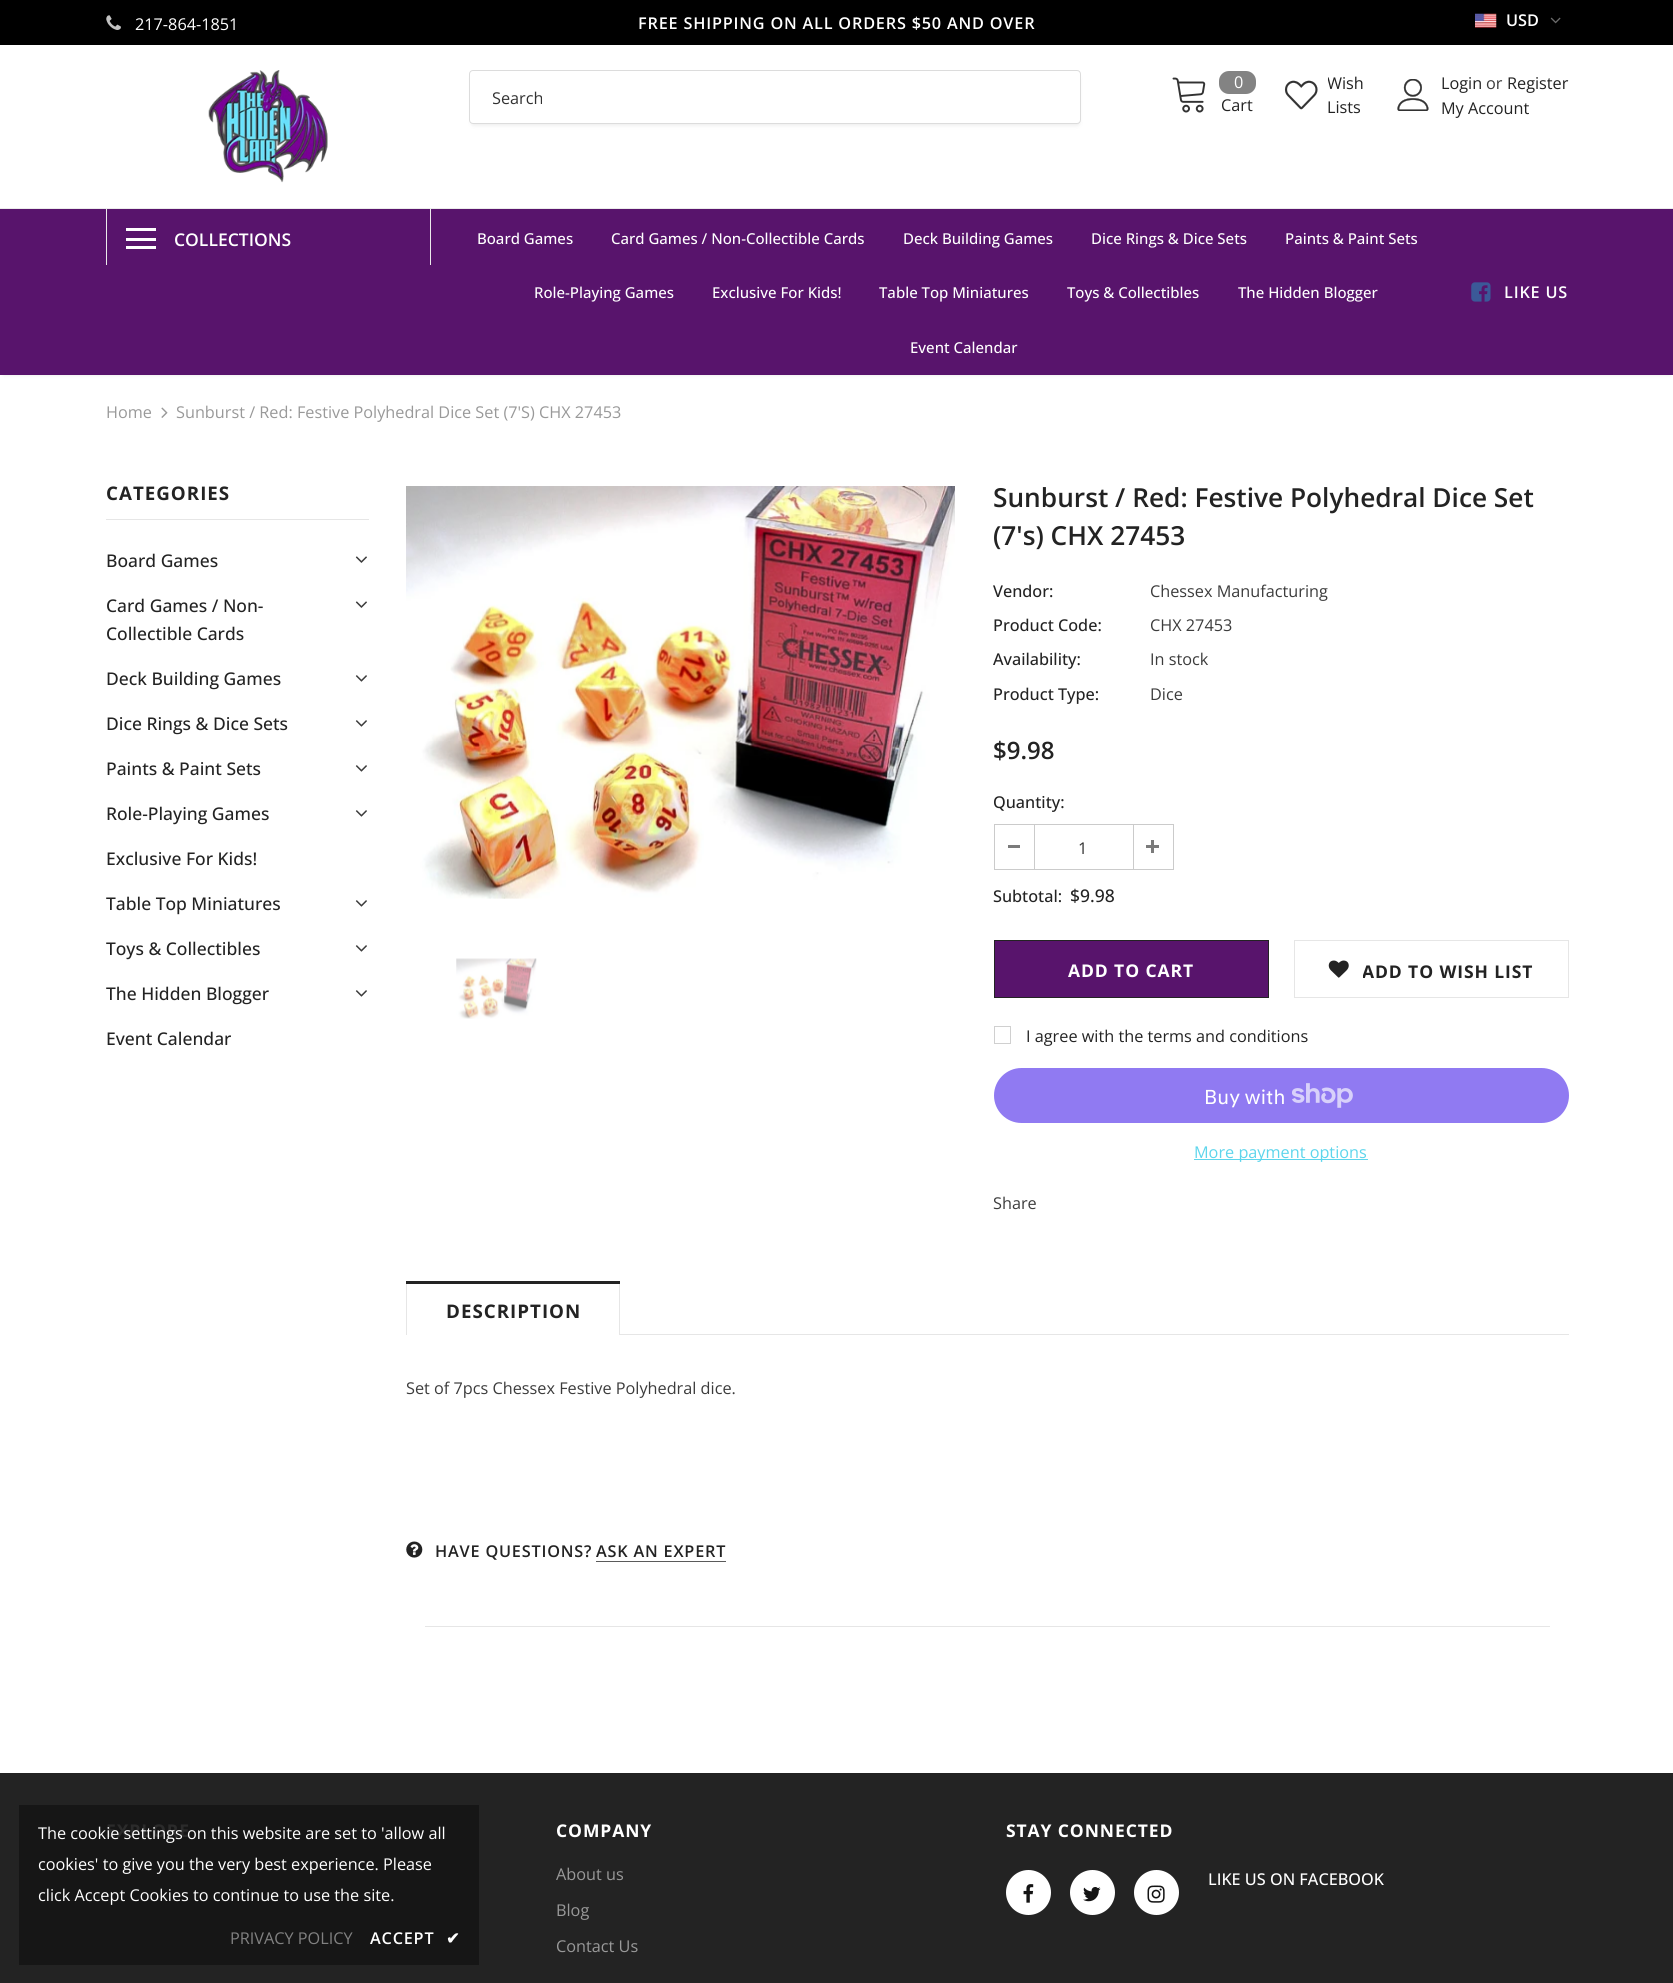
import math
import cairo


def use_color(cr, r, g, b):
  cr.set_source_rgb(r / 255, g / 255, b / 255)

def text(cr, x, y, s, family, size, color, bold=False, italic=False):
  cr.select_font_face(family, cairo.FONT_SLANT_ITALIC if italic else cairo.FONT_SLANT_NORMAL, cairo.FONT_WEIGHT_BOLD if bold else cairo.FONT_WEIGHT_NORMAL)
  cr.set_font_size(size)
  use_color(cr, *color)
  cr.move_to(x, y)
  cr.show_text(s)

def spaced_text(cr, x, y, s, letter, word):
  cr.move_to(x, y)
  for ch in s:
    cr.show_text(ch)
    cr.rel_move_to(letter + word * (ch == ' '), 0)

def box(cr, x, y, w, h, *color):
  use_color(cr, *color)
  cr.rectangle(x, y, w, h)
  cr.fill()

def round_rect(cr, x, y, w, h, r):
  cr.new_sub_path()
  for i, (u, v) in enumerate([(x + w - r, y + h - r), (x + r, y + h - r), (x + r, y + r), (x + w - r, y + r)]):
    cr.arc(u, v, r, i * math.pi / 2, (i + 1) * math.pi / 2)
  cr.close_path()

def shadow(cr, x, y, w, h, r, blur, alpha):
  cr.push_group_with_content(cairo.CONTENT_ALPHA)
  cr.set_operator(cairo.OPERATOR_SOURCE)
  for i in range(15, -16, -2):
    e = blur * i / 6
    if min(w, h) + 2 * e > 0:
      cr.set_source_rgba(0, 0, 0, alpha * math.erfc((i - 1) / 8.5) / 2)
      round_rect(cr, x - e, y - e, w + 2 * e, h + 2 * e, max(0, min(r + e + blur * .6, min(w, h) / 2 + e)))
      cr.fill()
  cr.mask(cr.pop_group())

def picture(cr, path, x, y, w, h):
  cr.save()
  cr.set_source_surface(cairo.ImageSurface.create_from_png(path), x, y)
  cr.rectangle(x, y, w, h)
  cr.fill()
  cr.restore()

def draw(cr):
  use_color(cr, 255, 255, 255)
  cr.paint()
  box(cr, 0, 0, 1673, 45, 0, 0, 0)
  picture(cr, "img_01.png", 106, 15, 15, 15)
  picture(cr, "img_02.png", 1475, 13, 22, 15)
  picture(cr, "img_03.png", 1550, 17, 11, 7)
  box(cr, 0, 208, 1673, 1, 235, 235, 235)
  picture(cr, "img_04.png", 208, 70, 120, 113)
  use_color(cr, 0, 0, 0)
  shadow(cr, 473, 78, 605, 46, 0, 3, 0.12)
  use_color(cr, 255, 255, 255)
  round_rect(cr, 469.5, 70.5, 611, 53, 3.5)
  cr.fill_preserve()
  use_color(cr, 220, 220, 220)
  cr.set_line_width(1)
  cr.stroke()
  picture(cr, "img_05.png", 1172, 77, 34, 36)
  use_color(cr, 131, 131, 131)
  round_rect(cr, 1219, 71, 37, 23, 10)
  cr.fill()
  picture(cr, "img_06.png", 1284, 80, 34, 30)
  picture(cr, "img_07.png", 1397, 79, 32, 32)
  use_color(cr, 0, 0, 0)
  shadow(cr, 4, 216, 1666, 159, 0, 2, 0.1)
  box(cr, 0, 209, 1673, 166, 88, 20, 108)
  box(cr, 430, 209, 1, 56, 235, 235, 235)
  box(cr, 106, 209, 1, 56, 235, 235, 235)
  box(cr, 126, 228, 30, 3, 255, 255, 255)
  box(cr, 126, 238, 30, 3, 255, 255, 255)
  box(cr, 126, 246, 30, 3, 255, 255, 255)
  picture(cr, "img_08.png", 1471, 282, 20, 20)
  picture(cr, "img_09.png", 161, 407, 7, 11)
  box(cr, 106, 519, 263, 1, 230, 230, 230)
  picture(cr, "img_10.png", 355, 556, 12, 7)
  picture(cr, "img_10.png", 355, 601, 12, 7)
  picture(cr, "img_11.png", 355, 675, 12, 7)
  picture(cr, "img_11.png", 355, 720, 12, 7)
  picture(cr, "img_11.png", 355, 765, 12, 7)
  picture(cr, "img_11.png", 355, 810, 12, 7)
  picture(cr, "img_11.png", 355, 900, 12, 7)
  picture(cr, "img_11.png", 355, 945, 12, 7)
  picture(cr, "img_11.png", 355, 990, 12, 7)
  picture(cr, "img_12.png", 406, 486, 549, 413)
  picture(cr, "img_13.png", 456, 958, 81, 61)
  cr.rectangle(994.5, 824.5, 179, 45)
  use_color(cr, 203, 203, 203)
  cr.stroke()
  box(cr, 1034, 825, 1, 44, 203, 203, 203)
  box(cr, 1008, 845, 12, 3, 123, 123, 123)
  box(cr, 1133, 825, 1, 44, 203, 203, 203)
  box(cr, 1146, 845, 13, 3, 123, 123, 123)
  box(cr, 1151, 840, 3, 13, 123, 123, 123)
  use_color(cr, 88, 20, 108)
  cr.rectangle(994.5, 940.5, 274, 57)
  cr.fill_preserve()
  use_color(cr, 35, 35, 35)
  cr.stroke()
  cr.rectangle(1294.5, 940.5, 274, 57)
  use_color(cr, 230, 230, 230)
  cr.stroke()
  picture(cr, "img_14.png", 1328, 960, 21, 18)
  cr.rectangle(994.5, 1026.5, 16, 17)
  use_color(cr, 208, 208, 208)
  cr.stroke()
  use_color(cr, 144, 122, 242)
  round_rect(cr, 994, 1068, 575, 55, 27.5)
  cr.fill()
  picture(cr, "img_15.png", 1292, 1083, 61, 25)
  box(cr, 1194, 1159, 174, 1, 93, 213, 236)
  box(cr, 620, 1334, 949, 1, 230, 230, 230)
  box(cr, 619, 1281, 1, 54, 230, 230, 230)
  box(cr, 406, 1281, 1, 54, 230, 230, 230)
  box(cr, 406, 1281, 214, 3, 35, 35, 35)
  picture(cr, "img_16.png", 406, 1541, 17, 17)
  box(cr, 596, 1561, 130, 1, 90, 90, 90)
  box(cr, 425, 1626, 1125, 1, 230, 230, 230)
  box(cr, 0, 1773, 1673, 210, 35, 35, 35)
  box(cr, 19, 1805, 460, 160, 22, 22, 22)
  use_color(cr, 255, 255, 255)
  cr.arc(1028.5, 1892.5, 22.5, 0, 2 * math.pi)
  cr.fill()
  picture(cr, "img_17.png", 1023, 1884, 11, 19)
  cr.arc(1092.5, 1892.5, 22.5, 0, 2 * math.pi)
  cr.fill()
  picture(cr, "img_18.png", 1083, 1887, 18, 15)
  cr.arc(1156.5, 1892.5, 22.5, 0, 2 * math.pi)
  cr.fill()
  picture(cr, "img_19.png", 1147, 1885, 18, 18)
  text(cr, 135, 30, "217-864-1851", "Open Sans", 16.25, (255, 255, 255))
  cr.select_font_face("Open Sans SemiBold")
  spaced_text(cr, 638, 29, "FREE SHIPPING ON ALL ORDERS $50 AND OVER", 0.8, 0)
  text(cr, 1506, 26, "USD", "Open Sans SemiBold", 16.25, (255, 255, 255))
  cr.save()
  cr.rectangle(493, 86, 497, 23)
  cr.clip()
  text(cr, 492, 104, "Search", "Open Sans", 16.25, (50, 50, 50))
  cr.restore()
  text(cr, 1234, 88, "0", "Open Sans", 16.25, (255, 255, 255))
  text(cr, 1221, 111, "Cart", "Open Sans", 16.25, (35, 35, 35))
  cr.save()
  cr.rectangle(1328, 70, 43, 49)
  cr.clip()
  text(cr, 1327, 89, "Wish", "Open Sans", 16.25, (35, 35, 35))
  cr.restore()
  text(cr, 1327, 113, "Lists", "Open Sans", 16.25, (35, 35, 35))
  text(cr, 1441, 89, "Login", "Open Sans", 16.25, (35, 35, 35))
  text(cr, 1486, 89, "or", "Open Sans", 16.25, (60, 60, 60))
  text(cr, 1507, 89, "Register", "Open Sans", 16.25, (35, 35, 35))
  text(cr, 1441, 114, "My Account", "Open Sans", 16.25, (35, 35, 35))
  text(cr, 174, 246, "COLLECTIONS", "Open Sans SemiBold", 17.5, (255, 255, 255))
  text(cr, 477, 244, "Board Games", "Open Sans Medium", 15, (255, 255, 255))
  text(cr, 611, 244, "Card Games / Non-Collectible Cards", "Open Sans Medium", 15, (255, 255, 255))
  text(cr, 903, 244, "Deck Building Games", "Open Sans Medium", 15, (255, 255, 255))
  text(cr, 1091, 244, "Dice Rings & Dice Sets", "Open Sans Medium", 15, (255, 255, 255))
  text(cr, 1285, 244, "Paints & Paint Sets", "Open Sans Medium", 15, (255, 255, 255))
  text(cr, 534, 298, "Role-Playing Games", "Open Sans Medium", 15, (255, 255, 255))
  text(cr, 712, 298, "Exclusive For Kids!", "Open Sans Medium", 15, (255, 255, 255))
  text(cr, 879, 298, "Table Top Miniatures", "Open Sans Medium", 15, (255, 255, 255))
  text(cr, 1067, 298, "Toys & Collectibles", "Open Sans Medium", 15, (255, 255, 255))
  text(cr, 1238, 298, "The Hidden Blogger", "Open Sans Medium", 15, (255, 255, 255))
  text(cr, 910, 353, "Event Calendar", "Open Sans Medium", 15, (255, 255, 255))
  cr.select_font_face("Open Sans SemiBold")
  cr.set_font_size(16.25)
  spaced_text(cr, 1504, 298, "LIKE US", 0.8, 0)
  text(cr, 106, 418, "Home", "Open Sans", 16.25, (153, 153, 153))
  text(cr, 176, 418, "Sunburst / Red: Festive Polyhedral Dice Set (7'S) CHX 27453", "Open Sans", 16.25, (153, 153, 153))
  cr.select_font_face("Open Sans", cairo.FONT_SLANT_NORMAL, cairo.FONT_WEIGHT_BOLD)
  cr.set_font_size(18.75)
  use_color(cr, 35, 35, 35)
  spaced_text(cr, 106, 500, "CATEGORIES", 1, 0)
  text(cr, 106, 567, "Board Games", "Open Sans Medium", 17.5, (35, 35, 35))
  text(cr, 106, 612, "Card Games / Non-", "Open Sans Medium", 17.5, (35, 35, 35))
  text(cr, 106, 640, "Collectible Cards", "Open Sans Medium", 17.5, (35, 35, 35))
  text(cr, 106, 685, "Deck Building Games", "Open Sans Medium", 17.5, (35, 35, 35))
  text(cr, 106, 730, "Dice Rings & Dice Sets", "Open Sans Medium", 17.5, (35, 35, 35))
  text(cr, 106, 775, "Paints & Paint Sets", "Open Sans Medium", 17.5, (35, 35, 35))
  text(cr, 106, 820, "Role-Playing Games", "Open Sans Medium", 17.5, (35, 35, 35))
  text(cr, 106, 865, "Exclusive For Kids!", "Open Sans Medium", 17.5, (35, 35, 35))
  text(cr, 106, 910, "Table Top Miniatures", "Open Sans Medium", 17.5, (35, 35, 35))
  text(cr, 106, 955, "Toys & Collectibles", "Open Sans Medium", 17.5, (35, 35, 35))
  text(cr, 106, 1000, "The Hidden Blogger", "Open Sans Medium", 17.5, (35, 35, 35))
  text(cr, 106, 1045, "Event Calendar", "Open Sans Medium", 17.5, (35, 35, 35))
  text(cr, 993, 507, "Sunburst / Red: Festive Polyhedral Dice Set", "Open Sans SemiBold", 26.25, (35, 35, 35))
  text(cr, 993, 545, "(7's) CHX 27453", "Open Sans SemiBold", 26.25, (35, 35, 35))
  text(cr, 993, 597, "Vendor:", "Open Sans Medium", 16.25, (35, 35, 35))
  text(cr, 1150, 597, "Chessex Manufacturing", "Open Sans", 16.25, (60, 60, 60))
  text(cr, 993, 631, "Product Code:", "Open Sans Medium", 16.25, (35, 35, 35))
  text(cr, 1150, 631, "CHX 27453", "Open Sans", 16.25, (60, 60, 60))
  text(cr, 993, 665, "Availability:", "Open Sans Medium", 16.25, (35, 35, 35))
  text(cr, 1150, 665, "In stock", "Open Sans", 16.25, (60, 60, 60))
  text(cr, 993, 700, "Product Type:", "Open Sans Medium", 16.25, (35, 35, 35))
  text(cr, 1150, 700, "Dice", "Open Sans", 16.25, (60, 60, 60))
  text(cr, 993, 759, "$9.98", "Open Sans SemiBold", 24, (35, 35, 35))
  text(cr, 993, 808, "Quantity:", "Open Sans Medium", 16.25, (35, 35, 35))
  text(cr, 1078, 854, "1", "Open Sans", 16.25, (50, 50, 50))
  text(cr, 993, 902, "Subtotal:", "Open Sans Medium", 16.25, (35, 35, 35))
  text(cr, 1070, 902, "$9.98", "Open Sans Medium", 17.5, (35, 35, 35))
  cr.select_font_face("Open Sans", cairo.FONT_SLANT_NORMAL, cairo.FONT_WEIGHT_BOLD)
  use_color(cr, 255, 255, 255)
  spaced_text(cr, 1068, 977, "ADD TO CART", 0.9, 0)
  cr.save()
  cr.rectangle(1363, 958, 170, 27)
  cr.clip()
  use_color(cr, 35, 35, 35)
  spaced_text(cr, 1362, 978, "ADD TO WISH LIST", 0.9, 0)
  cr.restore()
  text(cr, 1026, 1042, "I agree with the terms and conditions", "Open Sans", 16.25, (35, 35, 35))
  text(cr, 1204, 1104, "Buy with", "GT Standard", 20, (255, 255, 255))
  text(cr, 1194, 1158, "More payment options", "Open Sans", 16.25, (93, 213, 236))
  text(cr, 993, 1209, "Share", "Open Sans", 16.25, (60, 60, 60))
  cr.select_font_face("Open Sans", cairo.FONT_SLANT_NORMAL, cairo.FONT_WEIGHT_BOLD)
  cr.set_font_size(18.75)
  use_color(cr, 35, 35, 35)
  spaced_text(cr, 446, 1318, "DESCRIPTION", 1, 0)
  text(cr, 406, 1394, "Set of 7pcs Chessex Festive Polyhedral dice.", "Open Sans", 16.25, (60, 60, 60))
  cr.select_font_face("Open Sans SemiBold")
  use_color(cr, 35, 35, 35)
  spaced_text(cr, 435, 1557, "HAVE QUESTIONS?", 0.8, 0)
  spaced_text(cr, 596, 1557, "ASK AN EXPERT", 0.8, 0)
  text(cr, 38, 1870, "cookies' to give you the very best experience. Please", "Open Sans", 16.25, (255, 255, 255))
  text(cr, 38, 1901, "click Accept Cookies to continue to use the site.", "Open Sans", 16.25, (255, 255, 255))
  text(cr, 230, 1944, "PRIVACY POLICY", "Open Sans", 16.25, (129, 129, 129))
  cr.select_font_face("Open Sans SemiBold")
  use_color(cr, 255, 255, 255)
  spaced_text(cr, 370, 1944, "ACCEPT", 0.8, 0)
  cr.select_font_face("DejaVu Sans", cairo.FONT_SLANT_NORMAL, cairo.FONT_WEIGHT_BOLD)
  spaced_text(cr, 446, 1944, "✔", 0.8, 0)
  cr.select_font_face("Open Sans", cairo.FONT_SLANT_NORMAL, cairo.FONT_WEIGHT_BOLD)
  cr.set_font_size(17.5)
  use_color(cr, 43, 43, 43)
  spaced_text(cr, 106, 1837, "EXPLORE", 0.9, 0)
  text(cr, 38, 1839, "The cookie settings on this website are set to 'allow all", "Open Sans", 16.25, (255, 255, 255))
  cr.select_font_face("Open Sans", cairo.FONT_SLANT_NORMAL, cairo.FONT_WEIGHT_BOLD)
  cr.set_font_size(17.5)
  spaced_text(cr, 556, 1837, "COMPANY", 0.9, 0)
  text(cr, 556, 1880, "About us", "Open Sans", 16.25, (153, 153, 153))
  text(cr, 556, 1916, "Blog", "Open Sans", 16.25, (153, 153, 153))
  text(cr, 556, 1952, "Contact Us", "Open Sans", 16.25, (153, 153, 153))
  cr.select_font_face("Open Sans", cairo.FONT_SLANT_NORMAL, cairo.FONT_WEIGHT_BOLD)
  cr.set_font_size(17.5)
  use_color(cr, 255, 255, 255)
  spaced_text(cr, 1006, 1837, "STAY CONNECTED", 0.9, 0)
  text(cr, 1208, 1885, "LIKE US ON FACEBOOK", "Open Sans Medium", 16.25, (255, 255, 255))


surface = cairo.ImageSurface(cairo.FORMAT_RGB24, 1673, 1983)
cr = cairo.Context(surface)
options = cairo.FontOptions()
options.set_hint_metrics(cairo.HINT_METRICS_OFF)
options.set_hint_style(cairo.HINT_STYLE_NONE)
cr.set_font_options(options)
cr.set_miter_limit(4)
draw(cr)
surface.write_to_png("out.png")
